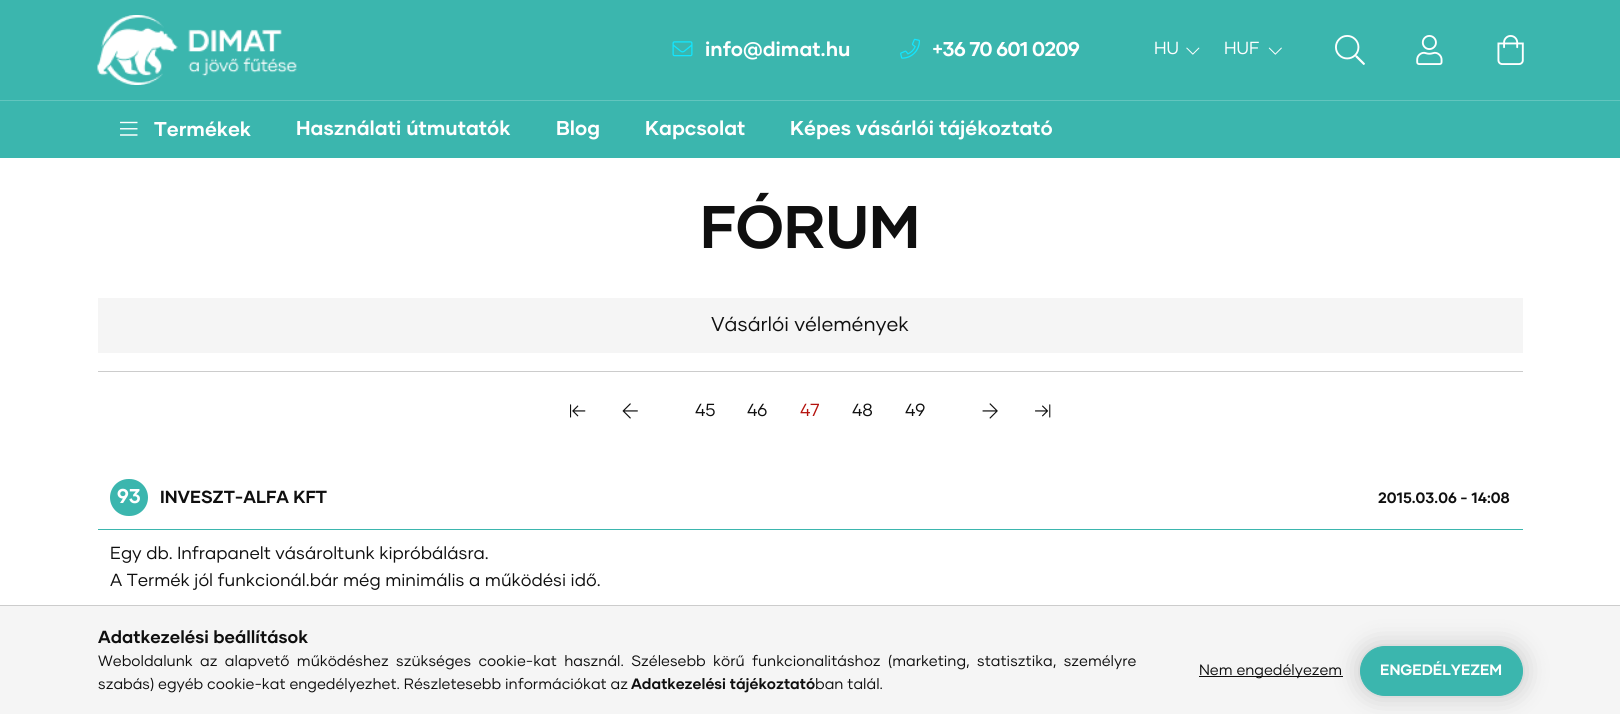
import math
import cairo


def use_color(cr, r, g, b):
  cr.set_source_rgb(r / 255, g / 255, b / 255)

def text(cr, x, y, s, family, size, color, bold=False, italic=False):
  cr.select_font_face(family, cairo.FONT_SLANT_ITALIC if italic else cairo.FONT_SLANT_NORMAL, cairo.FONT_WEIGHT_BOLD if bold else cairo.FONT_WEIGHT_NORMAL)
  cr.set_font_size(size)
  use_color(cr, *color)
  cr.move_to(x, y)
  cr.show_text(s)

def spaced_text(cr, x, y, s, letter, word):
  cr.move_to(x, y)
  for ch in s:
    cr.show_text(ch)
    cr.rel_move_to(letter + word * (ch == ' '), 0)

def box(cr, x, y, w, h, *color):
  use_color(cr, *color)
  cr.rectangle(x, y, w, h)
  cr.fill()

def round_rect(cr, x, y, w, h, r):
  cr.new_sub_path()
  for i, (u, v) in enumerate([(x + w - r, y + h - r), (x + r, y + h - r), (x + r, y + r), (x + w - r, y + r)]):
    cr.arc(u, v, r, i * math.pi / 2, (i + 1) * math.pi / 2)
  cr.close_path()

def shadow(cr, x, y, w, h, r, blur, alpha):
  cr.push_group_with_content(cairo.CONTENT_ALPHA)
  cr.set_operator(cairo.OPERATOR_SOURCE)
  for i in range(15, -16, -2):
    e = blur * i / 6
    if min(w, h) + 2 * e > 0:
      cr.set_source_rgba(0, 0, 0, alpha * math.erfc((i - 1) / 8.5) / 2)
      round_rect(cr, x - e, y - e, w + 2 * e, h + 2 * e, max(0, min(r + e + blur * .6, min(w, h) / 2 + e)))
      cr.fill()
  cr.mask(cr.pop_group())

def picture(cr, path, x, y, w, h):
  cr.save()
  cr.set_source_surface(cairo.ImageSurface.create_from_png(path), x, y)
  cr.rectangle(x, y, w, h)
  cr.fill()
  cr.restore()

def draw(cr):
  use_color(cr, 255, 255, 255)
  cr.paint()
  box(cr, 0, 0, 1620, 158, 59, 182, 174)
  picture(cr, "img_01.png", 97, 15, 200, 70)
  picture(cr, "img_02.png", 672, 41, 21, 16)
  picture(cr, "img_03.png", 900, 38, 20, 21)
  picture(cr, "img_04.png", 1186, 47, 14, 8)
  picture(cr, "img_05.png", 1268, 47, 14, 8)
  picture(cr, "img_06.png", 1335, 35, 30, 30)
  picture(cr, "img_07.png", 1416, 35, 27, 30)
  picture(cr, "img_08.png", 1497, 35, 27, 30)
  box(cr, 0, 100, 1620, 1, 98, 197, 190)
  picture(cr, "img_09.png", 120, 121, 18, 15)
  box(cr, 98, 298, 1425, 55, 245, 245, 245)
  box(cr, 98, 371, 1425, 1, 204, 204, 204)
  picture(cr, "img_10.png", 570, 404, 16, 14)
  picture(cr, "img_11.png", 622, 403, 16, 16)
  picture(cr, "img_12.png", 982, 403, 16, 16)
  picture(cr, "img_13.png", 1035, 404, 16, 14)
  box(cr, 98, 529, 1425, 1, 59, 182, 174)
  round_rect(cr, 110, 479, 38, 37, 18.5)
  cr.fill()
  box(cr, 0, 606, 1620, 108, 245, 245, 245)
  box(cr, 0, 605, 1620, 1, 204, 204, 204)
  box(cr, 1199, 676, 144, 1, 15, 15, 15)
  use_color(cr, 0, 0, 0)
  shadow(cr, 1360, 646, 163, 50, 25, 12.5, 0.2)
  use_color(cr, 59, 182, 174)
  round_rect(cr, 1360.5, 646.5, 162, 49, 24.5)
  cr.fill_preserve()
  cr.set_line_width(1)
  cr.stroke()
  text(cr, 705, 56, "info@dimat.hu", "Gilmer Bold", 20, (255, 255, 255), bold=True)
  spaced_text(cr, 932, 56, "+36 70 601 0209", -0.6, 0)
  text(cr, 1154, 54, "HU", "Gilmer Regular", 17.5, (255, 255, 255))
  text(cr, 1224, 54, "HUF", "Gilmer Regular", 17.5, (255, 255, 255))
  text(cr, 154, 136, "Termékek", "Gilmer Bold", 20, (255, 255, 255), bold=True)
  text(cr, 296, 135, "Használati útmutatók", "Gilmer Bold", 20, (255, 255, 255), bold=True)
  text(cr, 556, 135, "Blog", "Gilmer Bold", 20, (255, 255, 255), bold=True)
  text(cr, 645, 135, "Kapcsolat", "Gilmer Bold", 20, (255, 255, 255), bold=True)
  text(cr, 790, 135, "Képes vásárlói tájékoztató", "Gilmer Bold", 20, (255, 255, 255), bold=True)
  text(cr, 700, 248, "FÓRUM", "Gilmer Bold", 60, (15, 15, 15), bold=True)
  text(cr, 711, 331, "Vásárlói vélemények", "Gilmer Regular", 20, (15, 15, 15))
  text(cr, 695, 416, "45", "Gilmer Regular", 17.5, (15, 15, 15))
  text(cr, 747, 416, "46", "Gilmer Regular", 17.5, (15, 15, 15))
  text(cr, 800, 416, "47", "Gilmer Regular", 17.5, (180, 18, 13))
  text(cr, 852, 416, "48", "Gilmer Regular", 17.5, (15, 15, 15))
  text(cr, 905, 416, "49", "Gilmer Regular", 17.5, (15, 15, 15))
  text(cr, 117, 503, "93", "Gilmer Bold", 20, (255, 255, 255), bold=True)
  text(cr, 160, 503, "INVESZT-ALFA KFT", "Gilmer Bold", 17.5, (15, 15, 15), bold=True)
  text(cr, 1378, 503, "2015.03.06 - 14:08", "Gilmer Bold", 15, (15, 15, 15), bold=True)
  text(cr, 110, 559, "Egy db. Infrapanelt vásároltunk kipróbálásra.", "Gilmer Regular", 17.5, (15, 15, 15))
  text(cr, 110, 586, "A Termék jól funkcionál.bár még minimális a működési idő.", "Gilmer Regular", 17.5, (15, 15, 15))
  text(cr, 98, 643, "Adatkezelési beállítások", "Gilmer Bold", 17.5, (15, 15, 15), bold=True)
  cr.select_font_face("Gilmer Regular")
  cr.set_font_size(15)
  spaced_text(cr, 98, 666, "Weboldalunk az alapvető működéshez szükséges cookie-kat használ. Szélesebb körű funkcionalitáshoz (marketing, statisztika, személyre", 0, 3.5)
  text(cr, 98, 689, "szabás) egyéb cookie-kat engedélyezhet. Részletesebb információkat az", "Gilmer Regular", 15, (15, 15, 15))
  text(cr, 631, 689, "Adatkezelési tájékoztató", "Gilmer Bold", 15, (15, 15, 15), bold=True)
  text(cr, 815, 689, "ban talál.", "Gilmer Regular", 15, (15, 15, 15))
  text(cr, 1199, 675, "Nem engedélyezem", "Gilmer Regular", 15, (15, 15, 15))
  text(cr, 1380, 675, "ENGEDÉLYEZEM", "Gilmer Bold", 15, (255, 255, 255), bold=True)


surface = cairo.ImageSurface(cairo.FORMAT_RGB24, 1620, 714)
cr = cairo.Context(surface)
options = cairo.FontOptions()
options.set_hint_metrics(cairo.HINT_METRICS_OFF)
options.set_hint_style(cairo.HINT_STYLE_NONE)
cr.set_font_options(options)
cr.set_miter_limit(4)
draw(cr)
surface.write_to_png("out.png")
